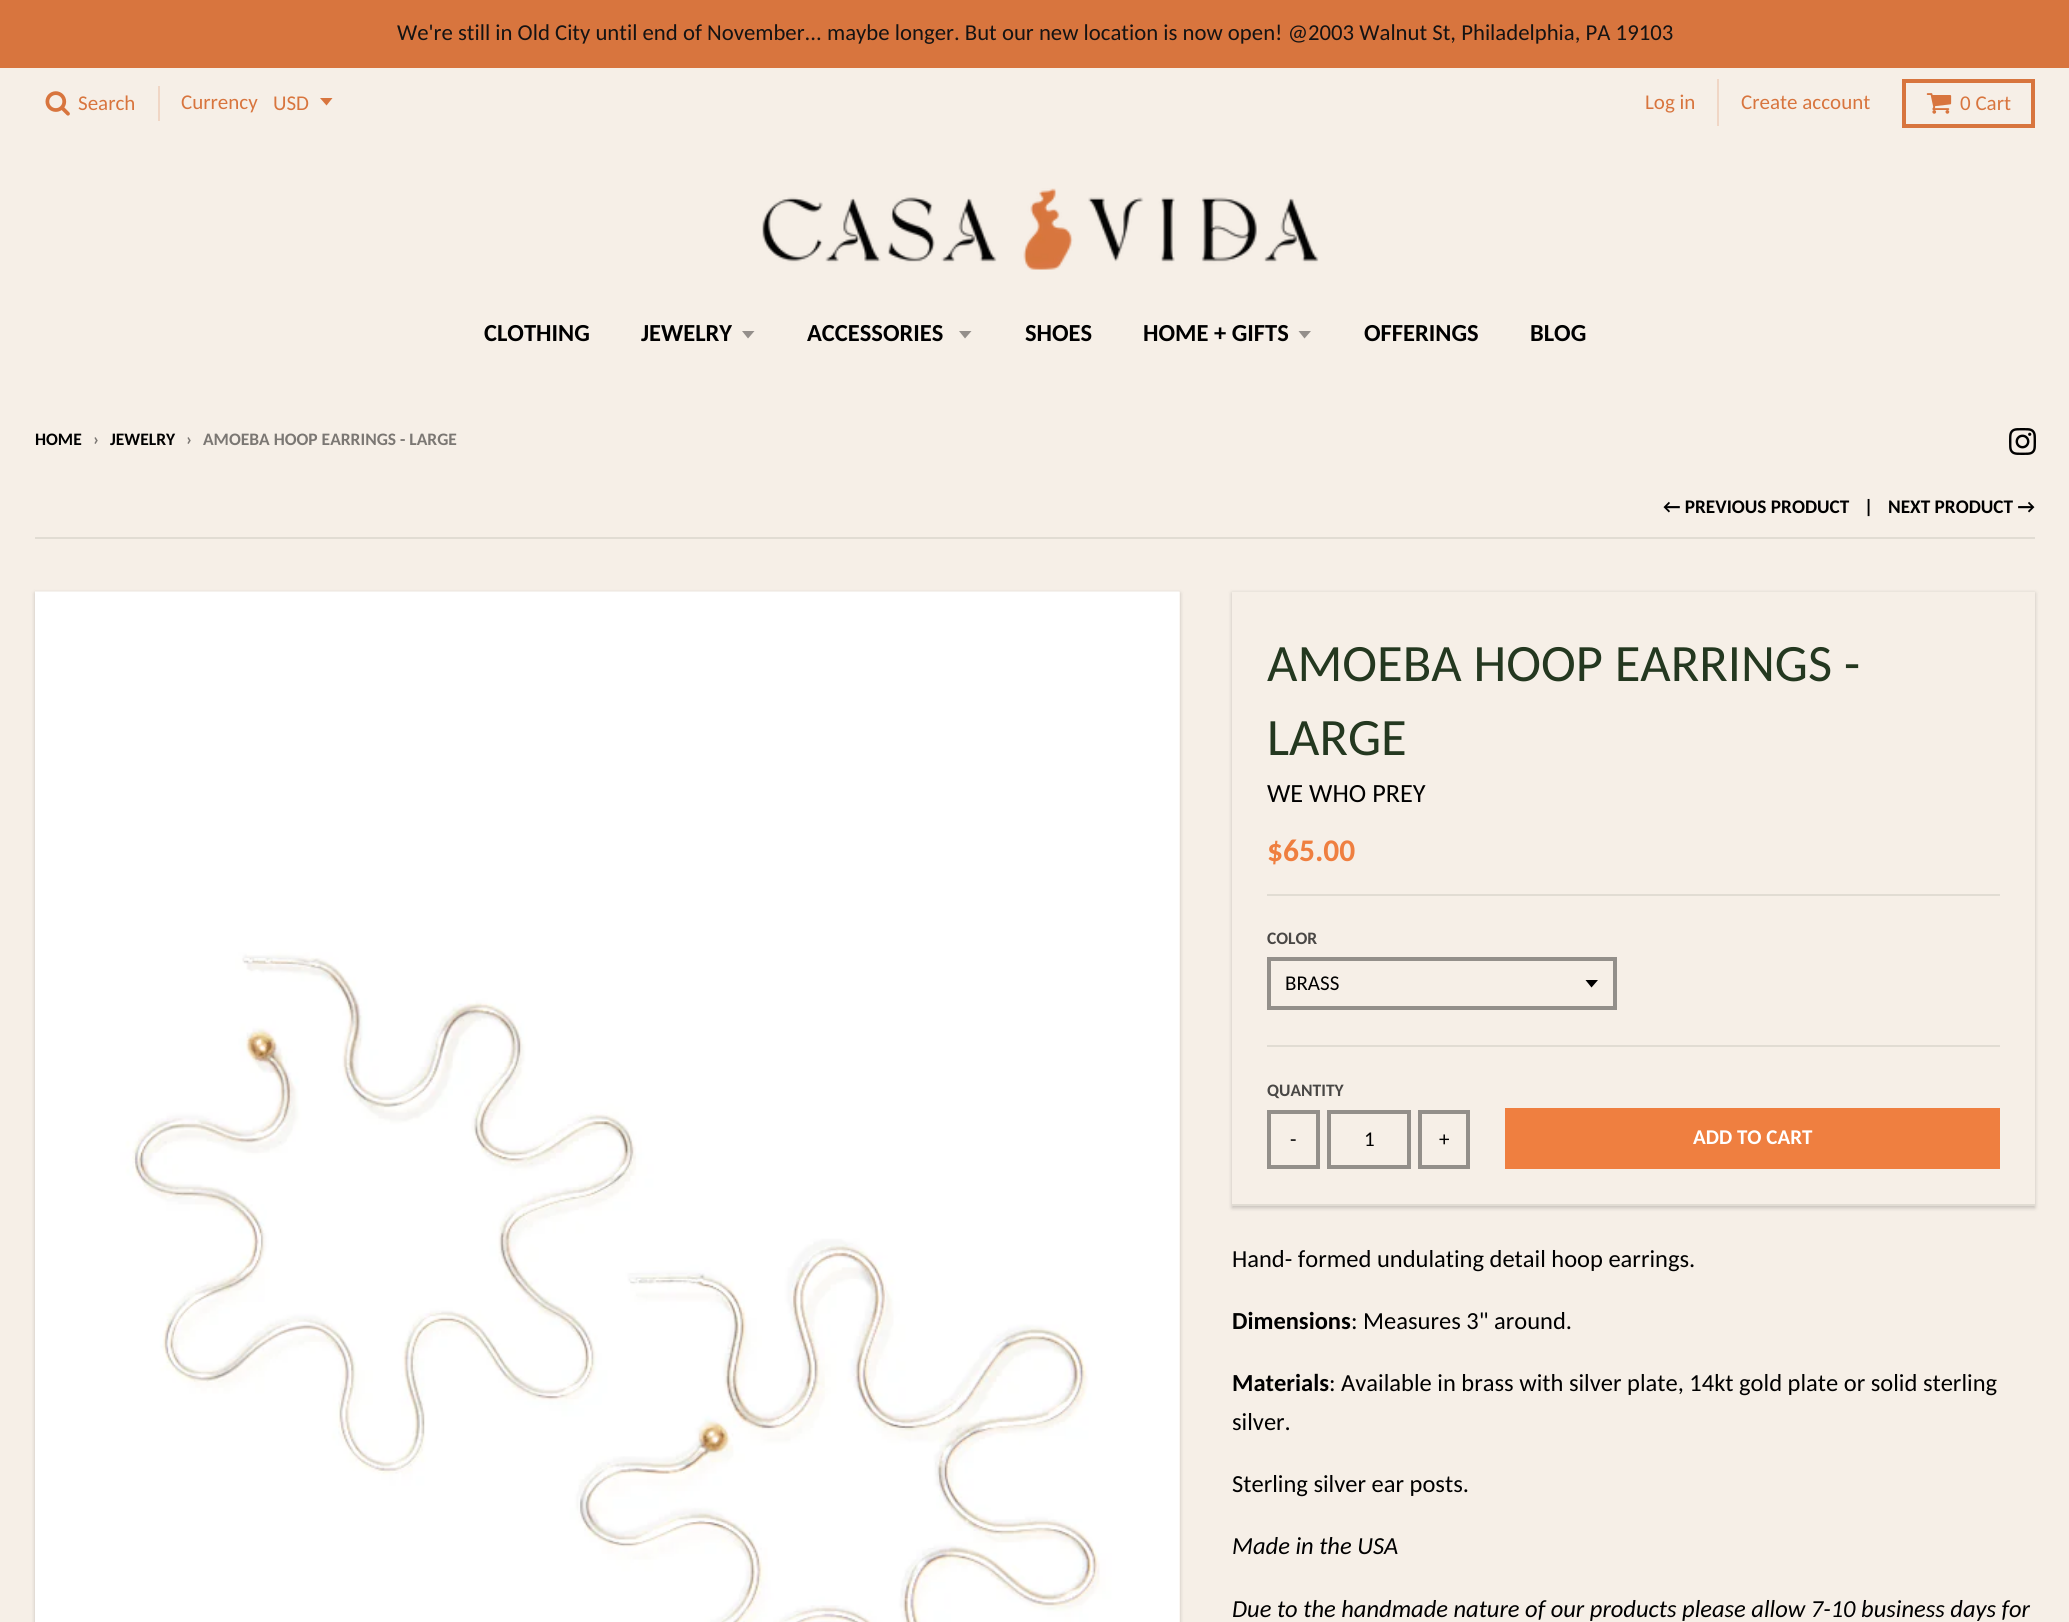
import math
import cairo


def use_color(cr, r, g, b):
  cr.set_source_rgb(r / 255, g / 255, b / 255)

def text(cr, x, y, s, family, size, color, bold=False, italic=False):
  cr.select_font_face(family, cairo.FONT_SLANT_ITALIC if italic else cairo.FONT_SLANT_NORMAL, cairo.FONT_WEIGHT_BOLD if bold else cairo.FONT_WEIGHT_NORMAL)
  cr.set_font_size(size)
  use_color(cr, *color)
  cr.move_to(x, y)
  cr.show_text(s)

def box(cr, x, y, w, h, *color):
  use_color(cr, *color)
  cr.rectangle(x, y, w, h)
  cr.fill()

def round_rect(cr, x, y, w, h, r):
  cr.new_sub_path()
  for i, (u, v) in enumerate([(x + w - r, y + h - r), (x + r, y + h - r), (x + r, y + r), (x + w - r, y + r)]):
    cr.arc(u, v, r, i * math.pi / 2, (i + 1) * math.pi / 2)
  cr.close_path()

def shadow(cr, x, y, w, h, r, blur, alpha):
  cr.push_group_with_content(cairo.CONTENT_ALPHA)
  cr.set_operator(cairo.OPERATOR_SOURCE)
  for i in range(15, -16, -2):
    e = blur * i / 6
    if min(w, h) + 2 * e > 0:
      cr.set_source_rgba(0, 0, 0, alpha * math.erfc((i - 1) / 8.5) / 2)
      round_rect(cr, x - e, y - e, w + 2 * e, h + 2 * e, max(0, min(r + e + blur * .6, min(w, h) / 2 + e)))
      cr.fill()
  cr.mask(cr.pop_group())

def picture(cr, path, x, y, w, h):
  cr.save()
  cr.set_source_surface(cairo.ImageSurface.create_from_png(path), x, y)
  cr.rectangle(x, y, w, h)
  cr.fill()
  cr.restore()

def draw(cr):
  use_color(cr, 246, 239, 231)
  cr.paint()
  box(cr, 0, 0, 2069, 68, 216, 117, 62)
  picture(cr, "img_01.png", 45, 91, 25, 25)
  box(cr, 158, 86, 2, 35, 240, 214, 197)
  use_color(cr, 216, 117, 62)
  cr.new_path()
  cr.move_to(320, 98)
  cr.line_to(326.5, 105.5)
  cr.line_to(332.5, 98)
  cr.close_path()
  cr.fill()
  box(cr, 1717, 79, 2, 47, 240, 214, 197)
  cr.rectangle(1904, 81, 129, 45)
  use_color(cr, 216, 117, 62)
  cr.set_line_width(4)
  cr.stroke()
  picture(cr, "img_02.png", 1926, 93, 26, 21)
  picture(cr, "img_03.png", 762, 188, 557, 82)
  use_color(cr, 148, 143, 139)
  cr.new_path()
  cr.move_to(742, 331)
  cr.line_to(748, 338.5)
  cr.line_to(754.5, 331)
  cr.close_path()
  cr.fill()
  cr.new_path()
  cr.move_to(959, 331)
  cr.line_to(965, 338.5)
  cr.line_to(971.5, 331)
  cr.close_path()
  cr.fill()
  cr.new_path()
  cr.move_to(1298.5, 331)
  cr.line_to(1304.5, 338.5)
  cr.line_to(1311, 331)
  cr.close_path()
  cr.fill()
  picture(cr, "img_04.png", 2009, 428, 27, 27)
  box(cr, 35, 537, 2000, 2, 225, 220, 211)
  use_color(cr, 0, 0, 0)
  shadow(cr, 35, 593, 1145, 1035, 0, 2, 0.2)
  box(cr, 1179, 592, 1, 1030, 246, 239, 231)
  picture(cr, "img_05.png", 35, 591, 1145, 1031)
  use_color(cr, 0, 0, 0)
  shadow(cr, 1232, 593, 803, 615, 0, 2, 0.2)
  box(cr, 1232, 592, 803, 612, 246, 239, 231)
  box(cr, 1232, 1204, 803, 2, 225, 220, 211)
  box(cr, 1267, 894, 733, 2, 225, 220, 211)
  box(cr, 1267, 1045, 733, 2, 225, 220, 211)
  use_color(cr, 0, 0, 0)
  cr.new_path()
  cr.move_to(1585.5, 980)
  cr.line_to(1591.5, 987.5)
  cr.line_to(1598, 980)
  cr.close_path()
  cr.fill()
  cr.rectangle(1269, 959, 346, 49)
  use_color(cr, 147, 143, 138)
  cr.stroke()
  cr.rectangle(1269, 1112, 49, 55)
  cr.stroke()
  cr.rectangle(1329, 1112, 80, 55)
  cr.stroke()
  cr.rectangle(1420, 1112, 48, 55)
  cr.stroke()
  box(cr, 1505, 1108, 495, 61, 239, 127, 64)
  text(cr, 397, 40, "We're still in Old City until end of November... maybe longer. But our new location is now open! @2003 Walnut St, Philadelphia, PA 19103", "Carlito", 22.75, (21, 19, 19))
  text(cr, 78, 110, "Search", "Carlito", 21, (216, 117, 62))
  text(cr, 181, 109, "Currency", "Carlito", 21, (216, 117, 62))
  text(cr, 273, 110, "USD", "Carlito", 21, (216, 117, 62))
  text(cr, 1645, 109, "Log in", "Carlito", 21, (216, 117, 62))
  text(cr, 1741, 109, "Create account", "Carlito", 21, (216, 117, 62))
  text(cr, 1960, 110, "0 Cart", "Carlito", 21, (216, 117, 62))
  text(cr, 484, 341, "CLOTHING", "Carlito", 24.5, (0, 0, 0), bold=True)
  text(cr, 641, 341, "JEWELRY", "Carlito", 24.5, (0, 0, 0), bold=True)
  text(cr, 807, 341, "ACCESSORIES", "Carlito", 24.5, (0, 0, 0), bold=True)
  text(cr, 1025, 341, "SHOES", "Carlito", 24.5, (0, 0, 0), bold=True)
  text(cr, 1143, 341, "HOME + GIFTS", "Carlito", 24.5, (0, 0, 0), bold=True)
  text(cr, 1364, 341, "OFFERINGS", "Carlito", 24.5, (0, 0, 0), bold=True)
  text(cr, 1530, 341, "BLOG", "Carlito", 24.5, (0, 0, 0), bold=True)
  text(cr, 35, 445, "HOME", "Carlito", 17.5, (0, 0, 0), bold=True)
  text(cr, 93, 445, "›", "Carlito", 17.5, (123, 119, 115), bold=True)
  text(cr, 110, 445, "JEWELRY", "Carlito", 17.5, (0, 0, 0), bold=True)
  text(cr, 186, 445, "›", "Carlito", 17.5, (123, 119, 115), bold=True)
  text(cr, 203, 445, "AMOEBA HOOP EARRINGS - LARGE", "Carlito", 17.5, (123, 119, 115), bold=True)
  text(cr, 1663, 513, "← PREVIOUS PRODUCT", "Carlito", 19.25, (0, 0, 0), bold=True)
  text(cr, 1864, 513, "|", "Carlito", 19.25, (0, 0, 0), bold=True)
  text(cr, 1888, 513, "NEXT PRODUCT →", "Carlito", 19.25, (0, 0, 0), bold=True)
  text(cr, 1267, 681, "AMOEBA HOOP EARRINGS -", "Carlito", 52.5, (36, 56, 32))
  text(cr, 1267, 755, "LARGE", "Carlito", 52.5, (36, 56, 32))
  text(cr, 1267, 802, "WE WHO PREY", "Carlito", 26.25, (0, 0, 0))
  text(cr, 1267, 861, "$65.00", "Carlito", 31.5, (239, 127, 64), bold=True)
  text(cr, 1267, 944, "COLOR", "Carlito", 17.5, (73, 71, 69), bold=True)
  text(cr, 1285, 990, "BRASS", "Carlito", 21, (0, 0, 0))
  text(cr, 1267, 1096, "QUANTITY", "Carlito", 17.5, (73, 71, 69), bold=True)
  text(cr, 1290, 1146, "-", "Carlito", 21, (0, 0, 0))
  text(cr, 1364, 1146, "1", "Carlito", 21, (0, 0, 0))
  text(cr, 1439, 1146, "+", "Carlito", 21, (0, 0, 0))
  text(cr, 1693, 1144, "ADD TO CART", "Carlito", 21, (255, 255, 255), bold=True)
  text(cr, 1232, 1267, "Hand- formed undulating detail hoop earrings.", "Carlito", 24.5, (0, 0, 0))
  text(cr, 1232, 1329, "Dimensions", "Carlito", 24.5, (0, 0, 0), bold=True)
  text(cr, 1351, 1329, ": Measures 3\" around.", "Carlito", 24.5, (0, 0, 0))
  text(cr, 1232, 1391, "Materials", "Carlito", 24.5, (0, 0, 0), bold=True)
  text(cr, 1329, 1391, ": Available in brass with silver plate, 14kt gold plate or solid sterling", "Carlito", 24.5, (0, 0, 0))
  text(cr, 1232, 1430, "silver.", "Carlito", 24.5, (0, 0, 0))
  text(cr, 1232, 1492, "Sterling silver ear posts.", "Carlito", 24.5, (0, 0, 0))
  text(cr, 1232, 1554, "Made in the USA", "Carlito", 24.5, (0, 0, 0), italic=True)
  text(cr, 1232, 1617, "Due to the handmade nature of our products please allow 7-10 business days for", "Carlito", 24.5, (0, 0, 0), italic=True)


surface = cairo.ImageSurface(cairo.FORMAT_RGB24, 2069, 1622)
cr = cairo.Context(surface)
options = cairo.FontOptions()
options.set_hint_metrics(cairo.HINT_METRICS_OFF)
options.set_hint_style(cairo.HINT_STYLE_NONE)
cr.set_font_options(options)
cr.set_miter_limit(4)
draw(cr)
surface.write_to_png("out.png")
